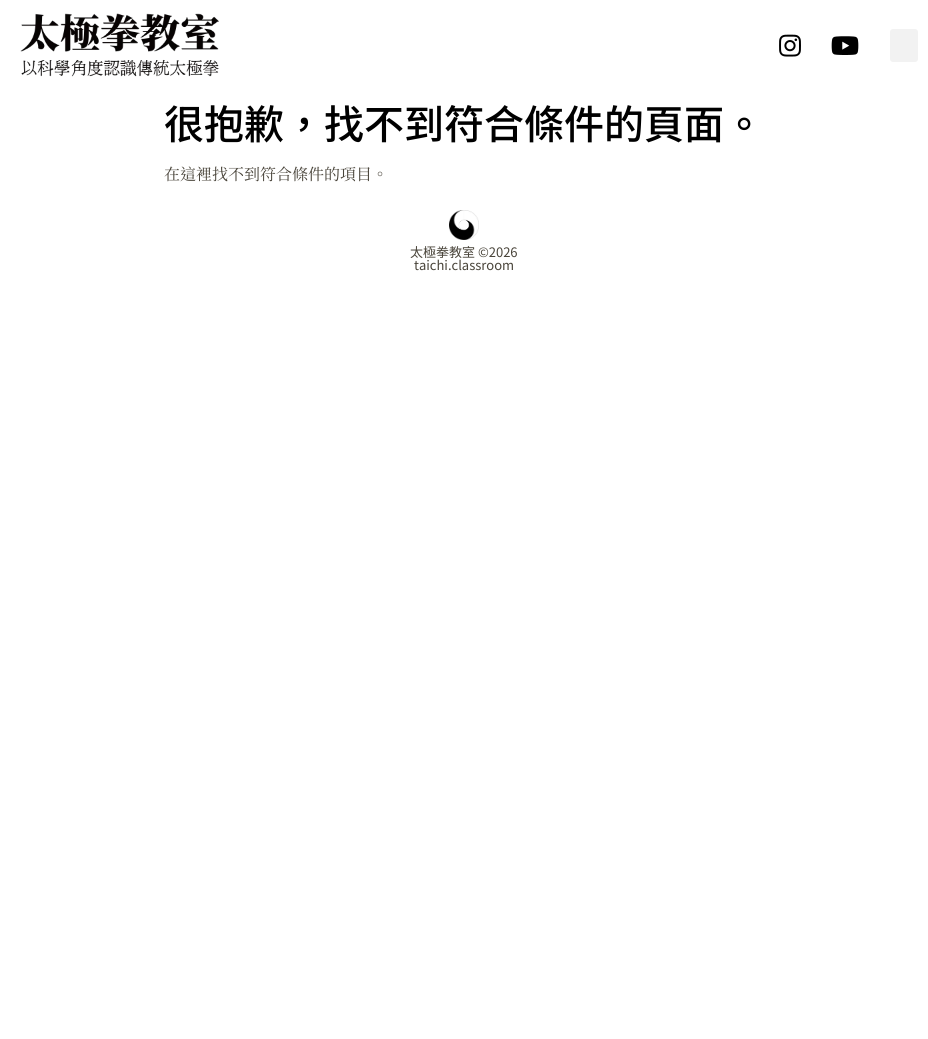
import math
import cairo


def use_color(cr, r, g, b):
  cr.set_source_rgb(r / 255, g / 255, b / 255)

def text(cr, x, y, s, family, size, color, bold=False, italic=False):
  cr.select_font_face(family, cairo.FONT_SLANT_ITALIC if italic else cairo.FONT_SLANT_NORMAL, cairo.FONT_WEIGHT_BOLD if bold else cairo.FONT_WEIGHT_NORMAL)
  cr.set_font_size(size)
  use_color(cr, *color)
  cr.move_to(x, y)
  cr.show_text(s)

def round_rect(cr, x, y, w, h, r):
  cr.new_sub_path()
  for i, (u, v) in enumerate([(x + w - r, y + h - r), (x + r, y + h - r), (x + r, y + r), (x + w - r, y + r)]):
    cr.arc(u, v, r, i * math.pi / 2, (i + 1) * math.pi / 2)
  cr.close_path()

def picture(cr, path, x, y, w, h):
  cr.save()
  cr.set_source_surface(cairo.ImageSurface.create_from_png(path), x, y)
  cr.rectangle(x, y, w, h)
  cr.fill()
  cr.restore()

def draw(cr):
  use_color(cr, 255, 255, 255)
  cr.paint()
  picture(cr, "img_01.png", 20, 13, 199, 64)
  picture(cr, "img_02.png", 779, 34, 22, 23)
  picture(cr, "img_03.png", 831, 36, 28, 19)
  use_color(cr, 242, 242, 242)
  round_rect(cr, 890, 29, 28, 33, 3)
  cr.fill()
  picture(cr, "img_04.png", 449, 210, 30, 30)
  text(cr, 164, 139, "很抱歉，找不到符合條件的頁面。", "Noto Sans TC Medium", 40, (0, 0, 0))
  text(cr, 164, 180, "在這裡找不到符合條件的項目。", "Noto Serif TC", 16, (73, 68, 58))
  text(cr, 410, 257, "太極拳教室 ©2026", "Noto Sans TC", 13, (73, 68, 58))
  text(cr, 414, 270, "taichi.classroom", "Noto Sans TC", 13, (73, 68, 58))


surface = cairo.ImageSurface(cairo.FORMAT_RGB24, 928, 1039)
cr = cairo.Context(surface)
options = cairo.FontOptions()
options.set_hint_metrics(cairo.HINT_METRICS_OFF)
options.set_hint_style(cairo.HINT_STYLE_NONE)
cr.set_font_options(options)
cr.set_miter_limit(4)
draw(cr)
surface.write_to_png("out.png")
